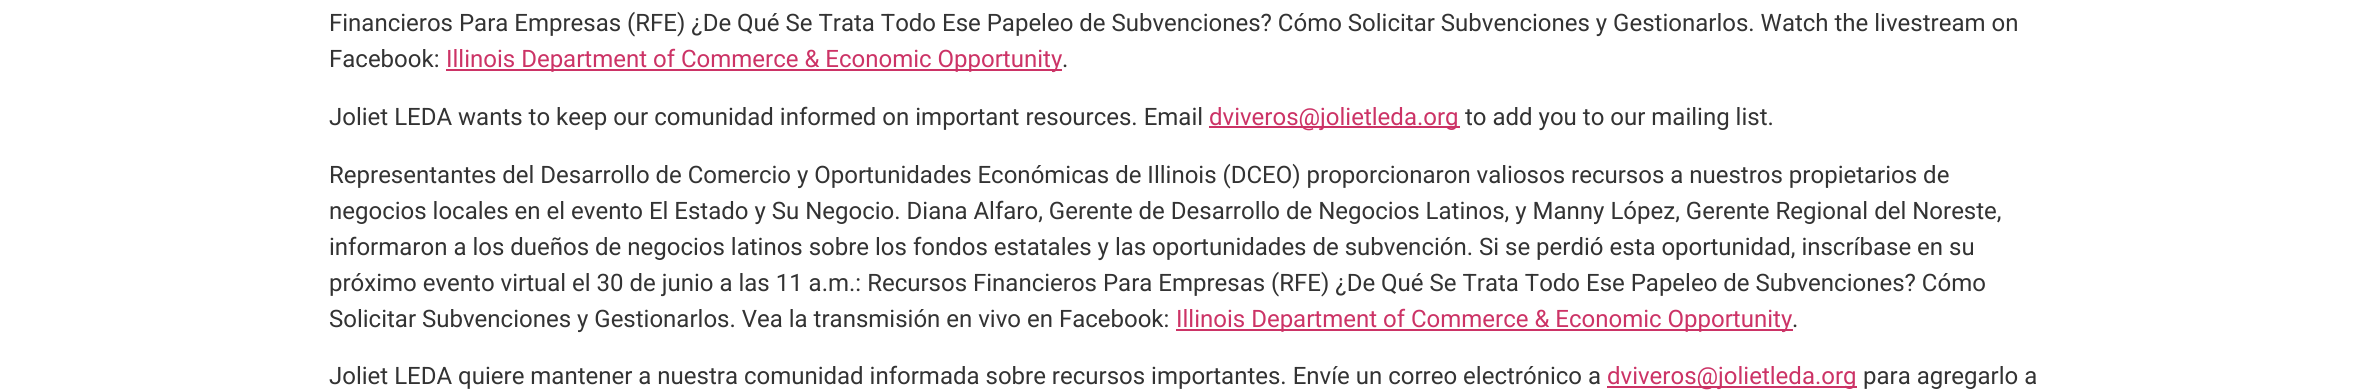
import math
import cairo


def use_color(cr, r, g, b):
  cr.set_source_rgb(r / 255, g / 255, b / 255)

def text(cr, x, y, s, family, size, color, bold=False, italic=False):
  cr.select_font_face(family, cairo.FONT_SLANT_ITALIC if italic else cairo.FONT_SLANT_NORMAL, cairo.FONT_WEIGHT_BOLD if bold else cairo.FONT_WEIGHT_NORMAL)
  cr.set_font_size(size)
  use_color(cr, *color)
  cr.move_to(x, y)
  cr.show_text(s)

def box(cr, x, y, w, h, *color):
  use_color(cr, *color)
  cr.rectangle(x, y, w, h)
  cr.fill()

def draw(cr):
  use_color(cr, 255, 255, 255)
  cr.paint()
  box(cr, 446, 69, 616, 2, 204, 51, 102)
  box(cr, 1209, 126, 251, 2, 204, 51, 102)
  box(cr, 1176, 329, 617, 2, 204, 51, 102)
  box(cr, 1607, 386, 250, 2, 204, 51, 102)
  text(cr, 329, 31, "Financieros Para Empresas (RFE) ¿De Qué Se Trata Todo Ese Papeleo de Subvenciones? Cómo Solicitar Subvenciones y Gestionarlos. Watch the livestream on", "Roboto", 24, (51, 51, 51))
  text(cr, 329, 67, "Facebook:", "Roboto", 24, (51, 51, 51))
  text(cr, 446, 67, "Illinois Department of Commerce & Economic Opportunity", "Roboto", 24, (204, 51, 102))
  text(cr, 1062, 67, ".", "Roboto", 24, (51, 51, 51))
  text(cr, 329, 125, "Joliet LEDA wants to keep our comunidad informed on important resources. Email", "Roboto", 24, (51, 51, 51))
  text(cr, 1209, 125, "dviveros@jolietleda.org", "Roboto", 24, (204, 51, 102))
  text(cr, 1465, 125, "to add you to our mailing list.", "Roboto", 24, (51, 51, 51))
  text(cr, 329, 183, "Representantes del Desarrollo de Comercio y Oportunidades Económicas de Illinois (DCEO) proporcionaron valiosos recursos a nuestros propietarios de", "Roboto", 24, (51, 51, 51))
  text(cr, 329, 219, "negocios locales en el evento El Estado y Su Negocio. Diana Alfaro, Gerente de Desarrollo de Negocios Latinos, y Manny López, Gerente Regional del Noreste,", "Roboto", 24, (51, 51, 51))
  text(cr, 329, 255, "informaron a los dueños de negocios latinos sobre los fondos estatales y las oportunidades de subvención. Si se perdió esta oportunidad, inscríbase en su", "Roboto", 24, (51, 51, 51))
  text(cr, 329, 291, "próximo evento virtual el 30 de junio a las 11 a.m.: Recursos Financieros Para Empresas (RFE) ¿De Qué Se Trata Todo Ese Papeleo de Subvenciones? Cómo", "Roboto", 24, (51, 51, 51))
  text(cr, 329, 327, "Solicitar Subvenciones y Gestionarlos. Vea la transmisión en vivo en Facebook:", "Roboto", 24, (51, 51, 51))
  text(cr, 1176, 327, "Illinois Department of Commerce & Economic Opportunity", "Roboto", 24, (204, 51, 102))
  text(cr, 1792, 327, ".", "Roboto", 24, (51, 51, 51))
  text(cr, 329, 384, "Joliet LEDA quiere mantener a nuestra comunidad informada sobre recursos importantes. Envíe un correo electrónico a", "Roboto", 24, (51, 51, 51))
  text(cr, 1607, 384, "dviveros@jolietleda.org", "Roboto", 24, (204, 51, 102))
  text(cr, 1863, 384, "para agregarlo a", "Roboto", 24, (51, 51, 51))


surface = cairo.ImageSurface(cairo.FORMAT_RGB24, 2368, 390)
cr = cairo.Context(surface)
options = cairo.FontOptions()
options.set_hint_metrics(cairo.HINT_METRICS_OFF)
options.set_hint_style(cairo.HINT_STYLE_NONE)
cr.set_font_options(options)
cr.set_miter_limit(4)
draw(cr)
surface.write_to_png("out.png")
